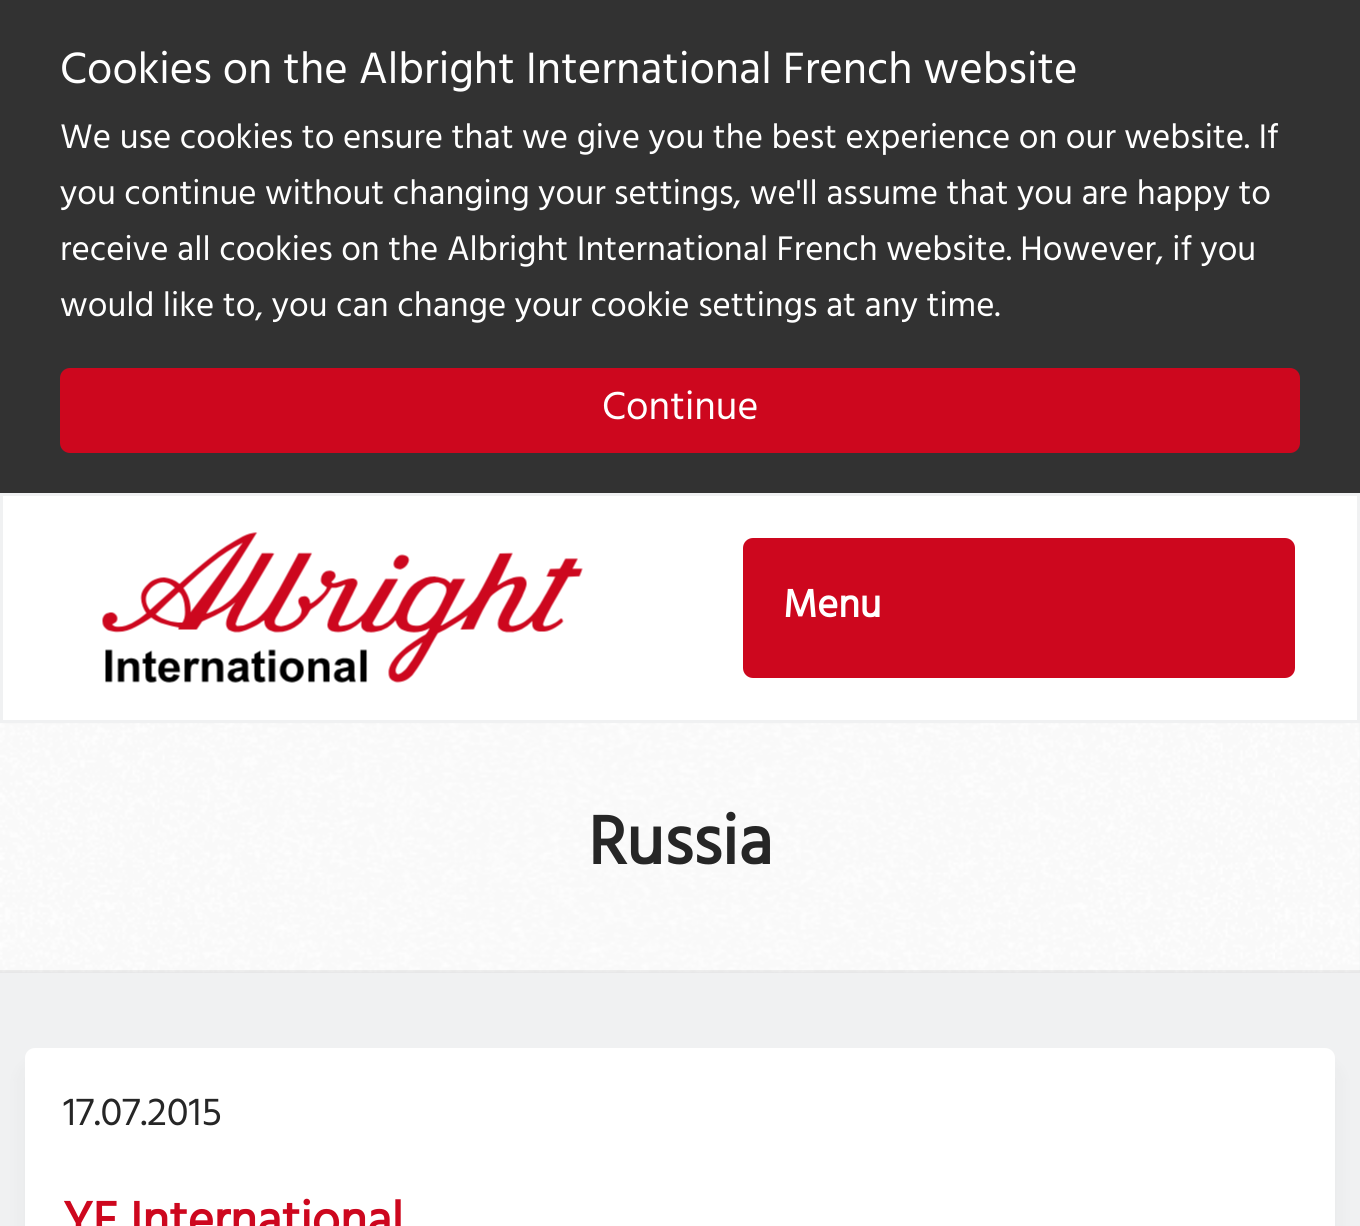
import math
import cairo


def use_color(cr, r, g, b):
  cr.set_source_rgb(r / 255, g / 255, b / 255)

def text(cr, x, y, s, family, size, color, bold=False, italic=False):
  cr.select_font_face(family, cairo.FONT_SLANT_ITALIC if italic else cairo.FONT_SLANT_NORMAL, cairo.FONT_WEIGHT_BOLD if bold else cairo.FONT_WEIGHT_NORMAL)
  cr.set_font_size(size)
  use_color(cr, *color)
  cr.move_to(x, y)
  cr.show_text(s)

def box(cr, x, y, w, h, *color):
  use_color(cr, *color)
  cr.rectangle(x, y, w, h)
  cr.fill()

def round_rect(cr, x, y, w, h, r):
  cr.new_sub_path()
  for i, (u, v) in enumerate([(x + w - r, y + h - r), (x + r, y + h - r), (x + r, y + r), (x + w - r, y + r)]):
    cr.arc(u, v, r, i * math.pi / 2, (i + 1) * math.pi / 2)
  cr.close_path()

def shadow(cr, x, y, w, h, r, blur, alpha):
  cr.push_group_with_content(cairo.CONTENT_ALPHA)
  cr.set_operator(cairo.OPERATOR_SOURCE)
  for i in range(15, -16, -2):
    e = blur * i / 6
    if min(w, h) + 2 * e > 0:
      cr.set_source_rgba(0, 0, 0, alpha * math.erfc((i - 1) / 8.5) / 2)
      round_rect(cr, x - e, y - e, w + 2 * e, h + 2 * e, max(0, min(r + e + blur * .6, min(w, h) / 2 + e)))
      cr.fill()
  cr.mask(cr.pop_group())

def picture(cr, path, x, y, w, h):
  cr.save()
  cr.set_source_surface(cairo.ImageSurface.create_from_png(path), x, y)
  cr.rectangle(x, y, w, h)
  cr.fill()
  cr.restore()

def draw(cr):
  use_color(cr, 240, 241, 242)
  cr.paint()
  box(cr, 0, 0, 1360, 493, 50, 50, 50)
  use_color(cr, 205, 7, 30)
  round_rect(cr, 61.5, 369.5, 1237, 82, 8.5)
  cr.fill_preserve()
  cr.set_line_width(3)
  cr.stroke()
  box(cr, 3, 496, 1354, 224, 255, 255, 255)
  picture(cr, "img_01.png", 102, 532, 481, 151)
  use_color(cr, 205, 7, 30)
  round_rect(cr, 744.5, 539.5, 549, 137, 8.5)
  cr.fill_preserve()
  cr.stroke()
  picture(cr, "img_02.png", 0, 723, 1360, 250)
  cr.set_source_rgba(0.608, 0.608, 0.608, 0.15)
  cr.rectangle(0, 970, 1360, 3)
  cr.fill()
  use_color(cr, 38, 38, 38)
  shadow(cr, 25, 1068, 1310, 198, 10, 10, 0.05)
  use_color(cr, 255, 255, 255)
  round_rect(cr, 25, 1048, 1310, 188, 10)
  cr.fill()
  text(cr, 60, 83, "Cookies on the Albright International French website", "Hind", 45, (255, 255, 255))
  text(cr, 60, 148, "We use cookies to ensure that we give you the best experience on our website. If", "Hind", 35, (255, 255, 255))
  text(cr, 60, 204, "you continue without changing your settings, we'll assume that you are happy to", "Hind", 35, (255, 255, 255))
  text(cr, 60, 260, "receive all cookies on the Albright International French website. However, if you", "Hind", 35, (255, 255, 255))
  text(cr, 60, 316, "would like to, you can change your cookie settings at any time.", "Hind", 35, (255, 255, 255))
  text(cr, 602, 419, "Continue", "Hind", 40, (255, 255, 255))
  text(cr, 783, 617, "Menu", "Hind", 40, (255, 255, 255), bold=True)
  text(cr, 588, 864, "Russia", "Hind", 70, (38, 38, 38), bold=True)
  text(cr, 63, 1125, "17.07.2015", "Hind", 40, (38, 38, 38))
  text(cr, 63, 1236, "YE International", "Hind", 50, (205, 7, 30), bold=True)


surface = cairo.ImageSurface(cairo.FORMAT_RGB24, 1360, 1226)
cr = cairo.Context(surface)
options = cairo.FontOptions()
options.set_hint_metrics(cairo.HINT_METRICS_OFF)
options.set_hint_style(cairo.HINT_STYLE_NONE)
cr.set_font_options(options)
cr.set_miter_limit(4)
draw(cr)
surface.write_to_png("out.png")
